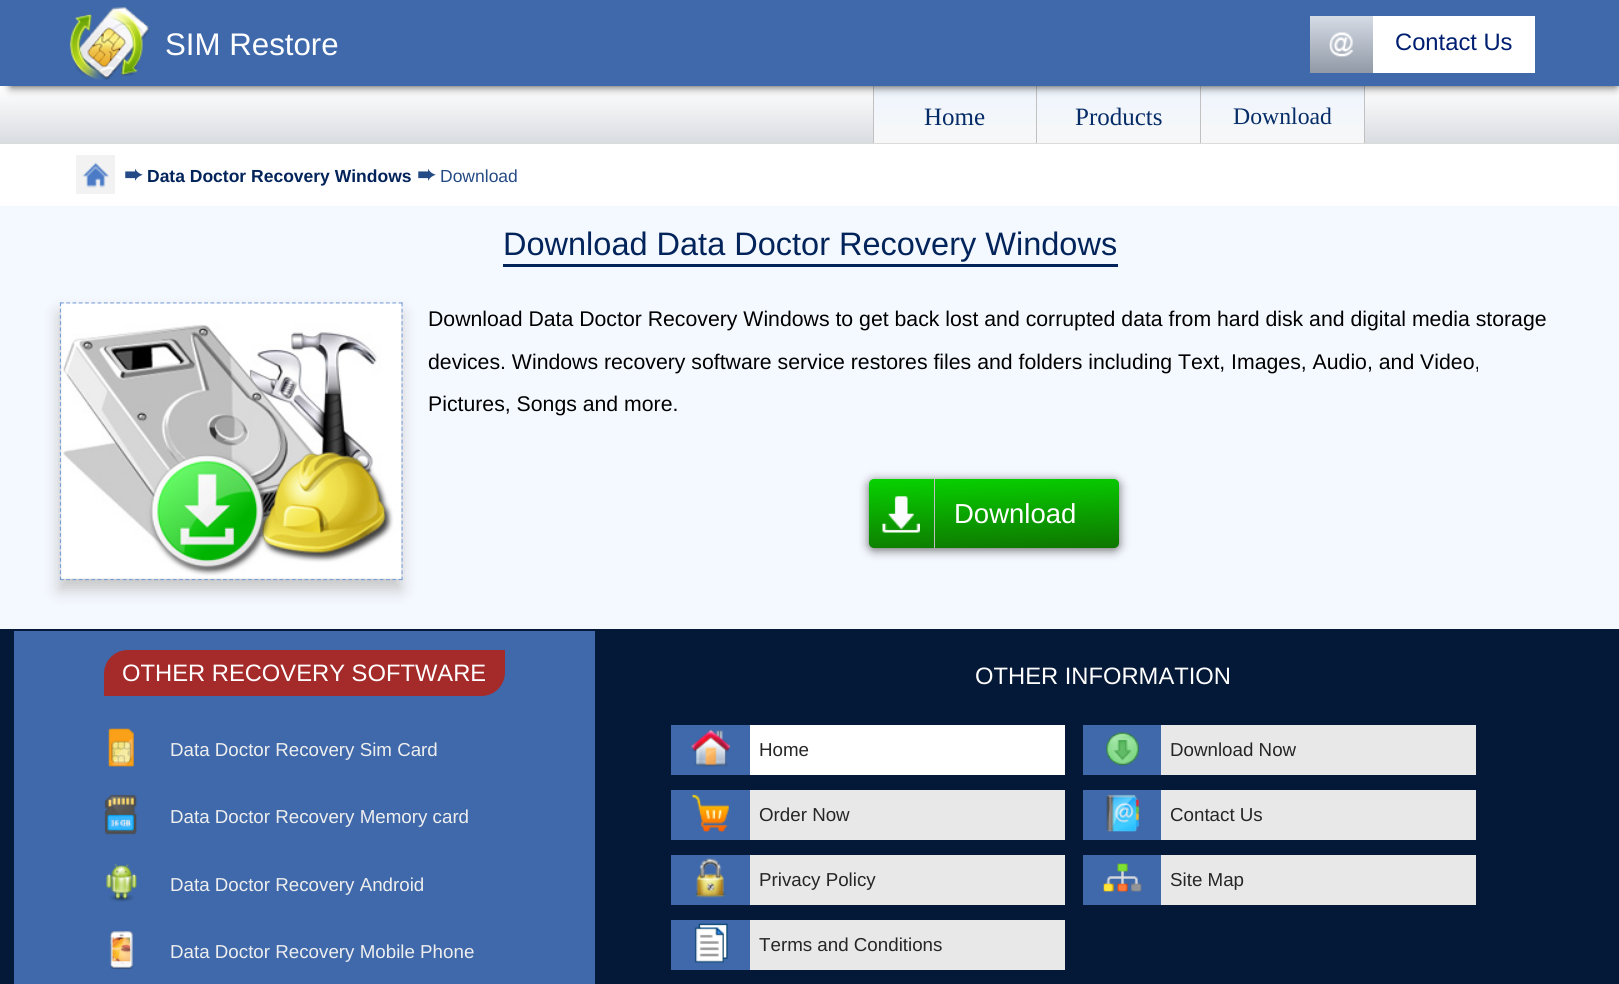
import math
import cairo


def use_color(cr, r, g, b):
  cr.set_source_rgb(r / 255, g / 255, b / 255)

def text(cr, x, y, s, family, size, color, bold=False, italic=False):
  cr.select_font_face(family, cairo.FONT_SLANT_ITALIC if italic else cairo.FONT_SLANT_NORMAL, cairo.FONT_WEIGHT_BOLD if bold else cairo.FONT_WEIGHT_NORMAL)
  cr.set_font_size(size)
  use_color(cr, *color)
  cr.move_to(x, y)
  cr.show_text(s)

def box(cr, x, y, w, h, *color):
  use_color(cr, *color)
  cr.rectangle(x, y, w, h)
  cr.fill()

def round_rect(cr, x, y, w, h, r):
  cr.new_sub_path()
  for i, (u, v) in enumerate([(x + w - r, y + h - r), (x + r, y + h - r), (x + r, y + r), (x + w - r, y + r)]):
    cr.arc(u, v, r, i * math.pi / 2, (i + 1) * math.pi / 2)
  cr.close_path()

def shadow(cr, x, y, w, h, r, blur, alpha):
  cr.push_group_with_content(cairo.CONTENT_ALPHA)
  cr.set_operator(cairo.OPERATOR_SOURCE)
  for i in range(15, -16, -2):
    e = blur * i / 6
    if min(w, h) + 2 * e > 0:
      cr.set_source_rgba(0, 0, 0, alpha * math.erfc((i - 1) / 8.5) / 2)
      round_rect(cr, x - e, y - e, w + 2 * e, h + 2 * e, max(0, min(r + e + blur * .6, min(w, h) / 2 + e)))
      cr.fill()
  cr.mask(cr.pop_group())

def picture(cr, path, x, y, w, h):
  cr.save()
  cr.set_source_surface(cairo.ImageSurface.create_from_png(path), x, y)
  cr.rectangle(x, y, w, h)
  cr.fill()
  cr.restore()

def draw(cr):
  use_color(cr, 255, 255, 255)
  cr.paint()
  gradient = cairo.LinearGradient(810, 86, 810, 143)
  gradient.add_color_stop_rgba(0, 1, 1, 1, 1)
  gradient.add_color_stop_rgba(1, 0.851, 0.863, 0.882, 1)
  cr.set_source(gradient)
  cr.rectangle(0, 90, 1619, 53)
  cr.fill()
  gradient = cairo.LinearGradient(955, 86, 955, 143)
  gradient.add_color_stop_rgba(0, 0.937, 0.965, 1, 1)
  gradient.add_color_stop_rgba(1, 0.969, 0.969, 0.969, 1)
  cr.set_source(gradient)
  cr.rectangle(874, 86, 162, 57)
  cr.fill()
  box(cr, 873, 86, 1, 57, 193, 193, 193)
  gradient = cairo.LinearGradient(1119, 86, 1119, 143)
  gradient.add_color_stop_rgba(0, 0.937, 0.965, 1, 1)
  gradient.add_color_stop_rgba(1, 0.969, 0.969, 0.969, 1)
  cr.set_source(gradient)
  cr.rectangle(1037, 86, 163, 57)
  cr.fill()
  box(cr, 1036, 86, 1, 57, 193, 193, 193)
  gradient = cairo.LinearGradient(1283, 86, 1283, 143)
  gradient.add_color_stop_rgba(0, 0.937, 0.965, 1, 1)
  gradient.add_color_stop_rgba(1, 0.969, 0.969, 0.969, 1)
  cr.set_source(gradient)
  cr.rectangle(1201, 86, 163, 57)
  cr.fill()
  box(cr, 1364, 86, 1, 57, 193, 193, 193)
  box(cr, 1200, 86, 1, 57, 193, 193, 193)
  use_color(cr, 51, 51, 51)
  shadow(cr, 11, 15, 1605, 71, 0, 5, 1)
  box(cr, 0, 0, 1619, 86, 63, 105, 170)
  picture(cr, "img_01.png", 69, 7, 81, 73)
  box(cr, 1373, 16, 162, 57, 255, 255, 255)
  gradient = cairo.LinearGradient(1341, 16, 1341, 73)
  gradient.add_color_stop_rgba(0, 0.835, 0.863, 0.902, 1)
  gradient.add_color_stop_rgba(1, 0.569, 0.6, 0.651, 1)
  cr.set_source(gradient)
  cr.rectangle(1310, 16, 63, 57)
  cr.fill()
  picture(cr, "img_02.png", 1329, 32, 25, 25)
  box(cr, 0, 143, 1619, 1, 219, 219, 219)
  box(cr, 76, 155, 39, 39, 242, 242, 242)
  picture(cr, "img_03.png", 82, 162, 27, 26)
  box(cr, 0, 206, 1619, 423, 244, 248, 255)
  box(cr, 503, 264, 615, 3, 2, 36, 90)
  use_color(cr, 200, 200, 200)
  shadow(cr, 59, 313, 342, 277, 0, 7.5, 1)
  cr.new_path()
  cr.move_to(60, 303)
  cr.line_to(402.5, 303)
  use_color(cr, 122, 158, 214)
  cr.set_line_width(1.2)
  cr.set_dash([3.75, 2.52])
  cr.stroke()
  cr.new_path()
  cr.move_to(402, 302.5)
  cr.line_to(402, 580)
  cr.set_dash([3.75, 2.48])
  cr.stroke()
  cr.new_path()
  cr.move_to(60, 579.5)
  cr.line_to(402.5, 579.5)
  cr.set_dash([3.75, 2.52])
  cr.stroke()
  cr.new_path()
  cr.move_to(60.5, 302.5)
  cr.line_to(60.5, 580)
  cr.set_dash([3.75, 2.48])
  cr.stroke()
  picture(cr, "img_04.png", 61, 303, 341, 276)
  use_color(cr, 104, 104, 104)
  shadow(cr, 869, 481, 250, 69, 5, 5, 1)
  gradient = cairo.LinearGradient(995, 552, 992, 474)
  gradient.add_color_stop_rgba(0, 0.055, 0.463, 0, 1)
  gradient.add_color_stop_rgba(1, 0.027, 0.827, 0, 1)
  cr.set_source(gradient)
  round_rect(cr, 869, 479, 250, 69, 5)
  cr.fill()
  picture(cr, "img_05.png", 882, 496, 38, 37)
  box(cr, 934, 479, 1, 69, 191, 191, 191)
  box(cr, 0, 629, 1619, 355, 4, 24, 55)
  box(cr, 14, 631, 581, 353, 63, 105, 170)
  use_color(cr, 165, 42, 42)
  cr.new_path()
  cr.move_to(128, 650)
  cr.line_to(505, 650)
  cr.line_to(505, 672)
  cr.curve_to(505, 685.5, 494.5, 696, 481, 696)
  cr.line_to(104, 696)
  cr.line_to(104, 674)
  cr.curve_to(104, 660.5, 114.5, 650, 128, 650)
  cr.close_path()
  cr.fill()
  picture(cr, "img_06.png", 108, 728, 26, 39)
  picture(cr, "img_07.png", 104, 794, 33, 41)
  picture(cr, "img_08.png", 106, 863, 31, 39)
  picture(cr, "img_09.png", 109, 931, 24, 38)
  box(cr, 750, 725, 315, 50, 255, 255, 255)
  box(cr, 671, 725, 79, 50, 63, 105, 170)
  picture(cr, "img_10.png", 691, 729, 40, 38)
  box(cr, 1161, 725, 315, 50, 232, 232, 233)
  box(cr, 1083, 725, 78, 50, 63, 105, 170)
  picture(cr, "img_11.png", 1106, 732, 33, 34)
  box(cr, 750, 790, 315, 50, 232, 232, 233)
  box(cr, 671, 790, 79, 50, 63, 105, 170)
  picture(cr, "img_12.png", 692, 794, 37, 38)
  box(cr, 1161, 790, 315, 50, 232, 232, 233)
  box(cr, 1083, 790, 78, 50, 63, 105, 170)
  picture(cr, "img_13.png", 1106, 794, 33, 38)
  box(cr, 750, 855, 315, 50, 232, 232, 233)
  box(cr, 671, 855, 79, 50, 63, 105, 170)
  picture(cr, "img_14.png", 695, 858, 31, 40)
  box(cr, 1161, 855, 315, 50, 232, 232, 233)
  box(cr, 1083, 855, 78, 50, 63, 105, 170)
  picture(cr, "img_15.png", 1103, 863, 39, 29)
  box(cr, 750, 920, 315, 50, 232, 232, 233)
  box(cr, 671, 920, 79, 50, 63, 105, 170)
  picture(cr, "img_16.png", 695, 923, 33, 40)
  text(cr, 165, 55, "SIM Restore", "Liberation Sans", 31.25, (255, 255, 255))
  text(cr, 1395, 50, "Contact Us", "Liberation Sans", 23.75, (0, 30, 112))
  text(cr, 924, 125, "Home", "Liberation Serif", 25, (6, 44, 103))
  text(cr, 1075, 125, "Products", "Liberation Serif", 25, (6, 44, 103))
  text(cr, 1233, 124, "Download", "Liberation Serif", 23.75, (6, 44, 103))
  text(cr, 124, 182, "➨", "DejaVu Sans", 22, (37, 75, 134), bold=True)
  text(cr, 147, 182, "Data Doctor Recovery Windows", "Liberation Sans", 17.5, (2, 36, 90), bold=True)
  text(cr, 417, 182, "➨", "DejaVu Sans", 22, (37, 75, 134), bold=True)
  text(cr, 440, 182, "Download", "Liberation Sans", 17.5, (37, 75, 134))
  text(cr, 503, 255, "Download Data Doctor Recovery Windows", "Liberation Sans", 32.5, (2, 36, 90))
  text(cr, 428, 326, "Download Data Doctor Recovery Windows to get back lost and corrupted data from hard disk and digital media storage", "Liberation Sans", 21.25, (0, 0, 0))
  text(cr, 428, 369, "devices. Windows recovery software service restores files and folders including Text, Images, Audio, and Video,", "Liberation Sans", 21.25, (0, 0, 0))
  text(cr, 428, 411, "Pictures, Songs and more.", "Liberation Sans", 21.25, (0, 0, 0))
  text(cr, 954, 523, "Download", "Liberation Sans", 27.5, (255, 255, 255))
  text(cr, 122, 681, "OTHER RECOVERY SOFTWARE", "Liberation Sans", 23.75, (255, 255, 255))
  text(cr, 170, 756, "Data Doctor Recovery Sim Card", "Liberation Sans", 18.75, (238, 238, 238))
  text(cr, 170, 823, "Data Doctor Recovery Memory card", "Liberation Sans", 18.75, (238, 238, 238))
  text(cr, 170, 891, "Data Doctor Recovery Android", "Liberation Sans", 18.75, (238, 238, 238))
  text(cr, 170, 958, "Data Doctor Recovery Mobile Phone", "Liberation Sans", 18.75, (238, 238, 238))
  text(cr, 975, 684, "OTHER INFORMATION", "Liberation Sans", 23.75, (255, 255, 255))
  text(cr, 759, 756, "Home", "Liberation Sans", 18.75, (38, 38, 38))
  text(cr, 1170, 756, "Download Now", "Liberation Sans", 18.75, (38, 38, 38))
  text(cr, 759, 821, "Order Now", "Liberation Sans", 18.75, (38, 38, 38))
  text(cr, 1170, 821, "Contact Us", "Liberation Sans", 18.75, (38, 38, 38))
  text(cr, 759, 886, "Privacy Policy", "Liberation Sans", 18.75, (38, 38, 38))
  text(cr, 1170, 886, "Site Map", "Liberation Sans", 18.75, (38, 38, 38))
  text(cr, 759, 951, "Terms and Conditions", "Liberation Sans", 18.75, (38, 38, 38))


surface = cairo.ImageSurface(cairo.FORMAT_RGB24, 1619, 984)
cr = cairo.Context(surface)
options = cairo.FontOptions()
options.set_hint_metrics(cairo.HINT_METRICS_OFF)
options.set_hint_style(cairo.HINT_STYLE_NONE)
cr.set_font_options(options)
cr.set_miter_limit(4)
draw(cr)
surface.write_to_png("out.png")
